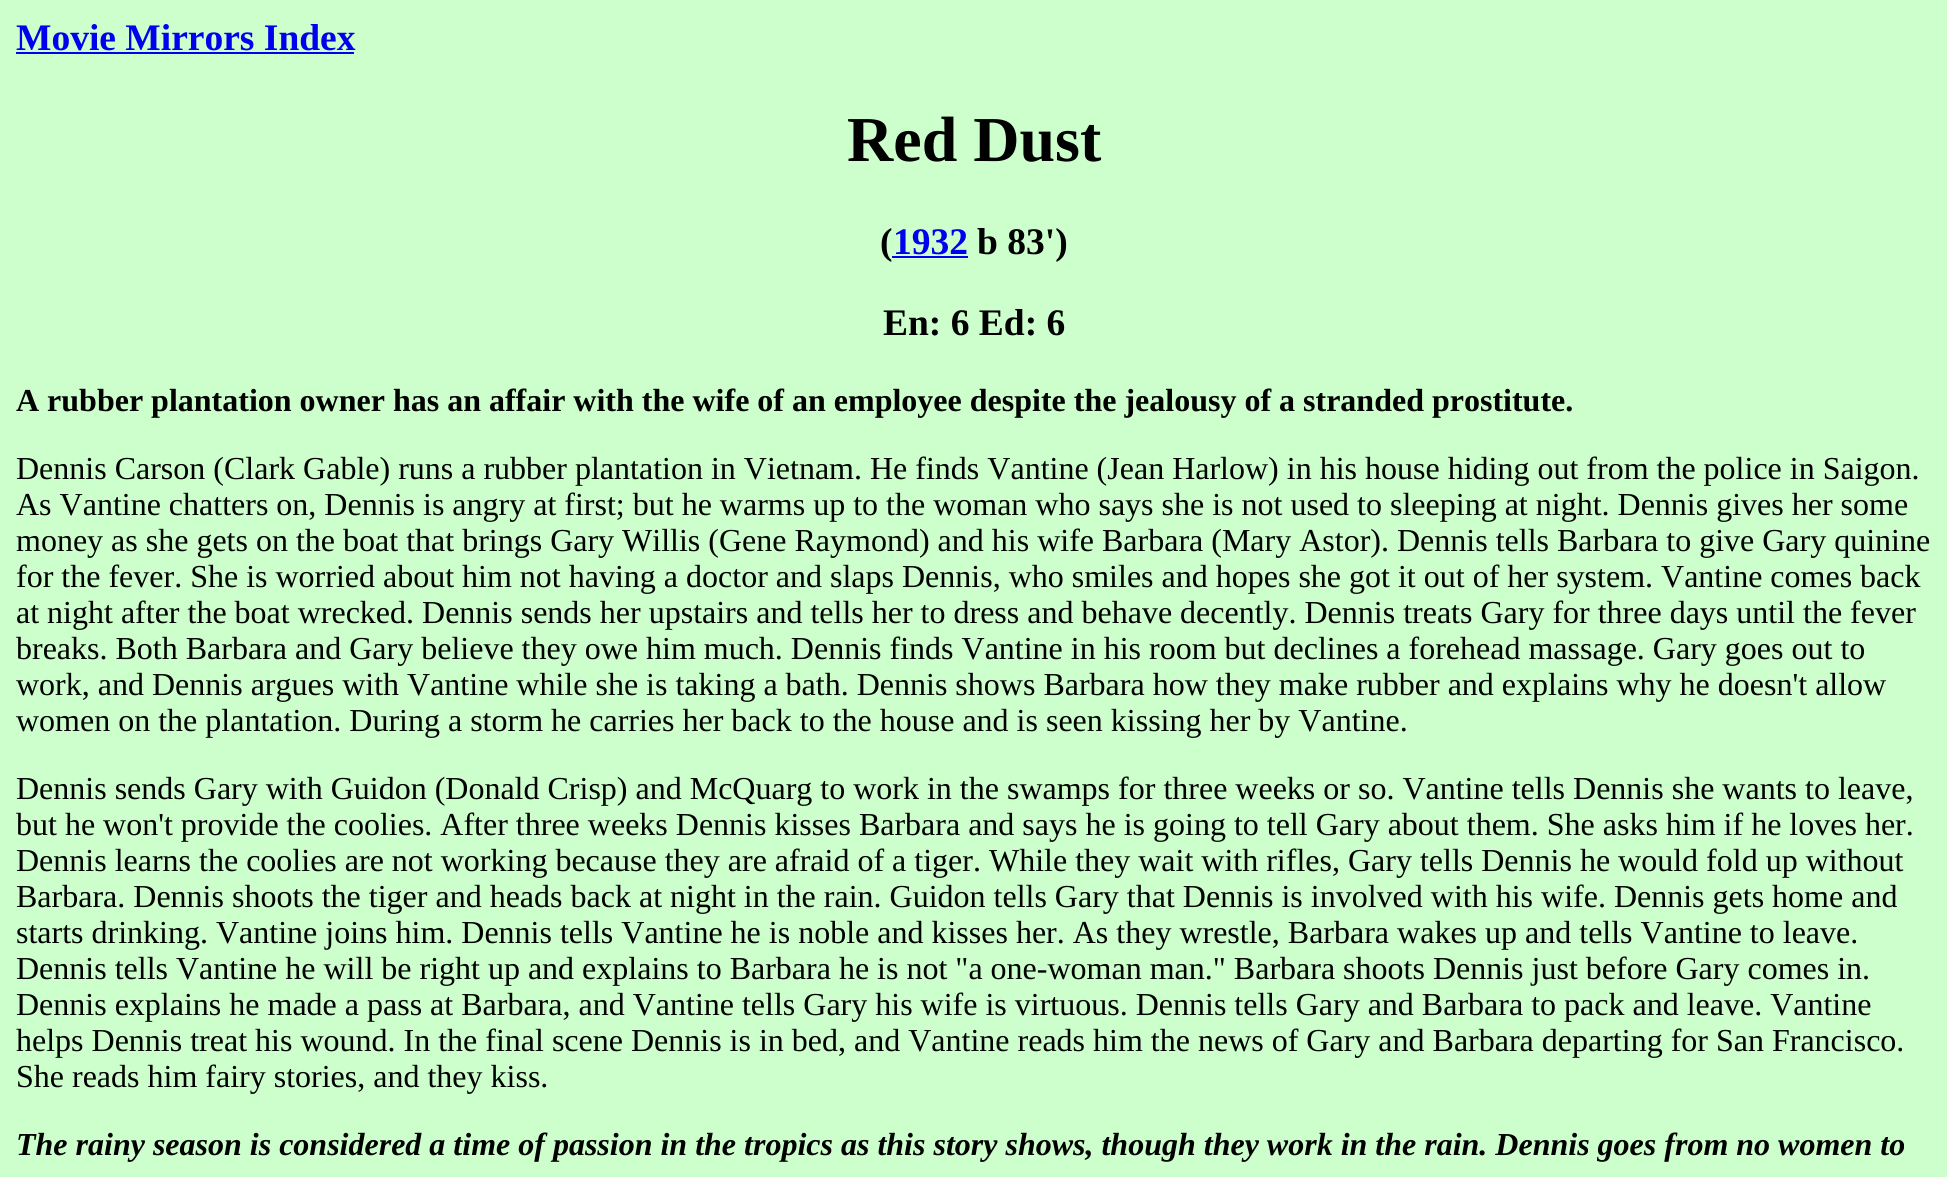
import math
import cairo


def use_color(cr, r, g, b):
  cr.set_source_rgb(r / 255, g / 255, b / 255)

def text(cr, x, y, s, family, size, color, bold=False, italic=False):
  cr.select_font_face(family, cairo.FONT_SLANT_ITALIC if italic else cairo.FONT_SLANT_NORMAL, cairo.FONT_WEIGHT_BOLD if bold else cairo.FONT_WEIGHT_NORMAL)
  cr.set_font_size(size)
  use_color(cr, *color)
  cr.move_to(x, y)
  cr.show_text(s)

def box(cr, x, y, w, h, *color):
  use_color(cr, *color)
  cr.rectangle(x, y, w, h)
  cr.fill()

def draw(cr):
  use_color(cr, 204, 255, 204)
  cr.paint()
  box(cr, 16, 52, 338, 2, 0, 0, 238)
  box(cr, 892, 256, 76, 2, 0, 0, 238)
  text(cr, 16, 50, "Movie Mirrors Index", "Liberation Serif", 37.5, (0, 0, 238), bold=True)
  text(cr, 847, 161, "Red Dust", "Liberation Serif", 64, (0, 0, 0), bold=True)
  text(cr, 880, 254, "(", "Liberation Serif", 37.5, (0, 0, 0), bold=True)
  text(cr, 893, 254, "1932", "Liberation Serif", 37.5, (0, 0, 238), bold=True)
  text(cr, 977, 254, "b 83')", "Liberation Serif", 37.5, (0, 0, 0), bold=True)
  text(cr, 883, 335, "En: 6 Ed: 6", "Liberation Serif", 37.5, (0, 0, 0), bold=True)
  text(cr, 16, 411, "A rubber plantation owner has an affair with the wife of an employee despite the jealousy of a stranded prostitute.", "Liberation Serif", 32, (0, 0, 0), bold=True)
  text(cr, 16, 479, "Dennis Carson (Clark Gable) runs a rubber plantation in Vietnam. He finds Vantine (Jean Harlow) in his house hiding out from the police in Saigon.", "Liberation Serif", 32, (0, 0, 0))
  text(cr, 16, 515, "As Vantine chatters on, Dennis is angry at first; but he warms up to the woman who says she is not used to sleeping at night. Dennis gives her some", "Liberation Serif", 32, (0, 0, 0))
  text(cr, 16, 551, "money as she gets on the boat that brings Gary Willis (Gene Raymond) and his wife Barbara (Mary Astor). Dennis tells Barbara to give Gary quinine", "Liberation Serif", 32, (0, 0, 0))
  text(cr, 16, 587, "for the fever. She is worried about him not having a doctor and slaps Dennis, who smiles and hopes she got it out of her system. Vantine comes back", "Liberation Serif", 32, (0, 0, 0))
  text(cr, 16, 623, "at night after the boat wrecked. Dennis sends her upstairs and tells her to dress and behave decently. Dennis treats Gary for three days until the fever", "Liberation Serif", 32, (0, 0, 0))
  text(cr, 16, 659, "breaks. Both Barbara and Gary believe they owe him much. Dennis finds Vantine in his room but declines a forehead massage. Gary goes out to", "Liberation Serif", 32, (0, 0, 0))
  text(cr, 16, 695, "work, and Dennis argues with Vantine while she is taking a bath. Dennis shows Barbara how they make rubber and explains why he doesn't allow", "Liberation Serif", 32, (0, 0, 0))
  text(cr, 16, 731, "women on the plantation. During a storm he carries her back to the house and is seen kissing her by Vantine.", "Liberation Serif", 32, (0, 0, 0))
  text(cr, 16, 799, "Dennis sends Gary with Guidon (Donald Crisp) and McQuarg to work in the swamps for three weeks or so. Vantine tells Dennis she wants to leave,", "Liberation Serif", 32, (0, 0, 0))
  text(cr, 16, 835, "but he won't provide the coolies. After three weeks Dennis kisses Barbara and says he is going to tell Gary about them. She asks him if he loves her.", "Liberation Serif", 32, (0, 0, 0))
  text(cr, 16, 871, "Dennis learns the coolies are not working because they are afraid of a tiger. While they wait with rifles, Gary tells Dennis he would fold up without", "Liberation Serif", 32, (0, 0, 0))
  text(cr, 16, 907, "Barbara. Dennis shoots the tiger and heads back at night in the rain. Guidon tells Gary that Dennis is involved with his wife. Dennis gets home and", "Liberation Serif", 32, (0, 0, 0))
  text(cr, 16, 943, "starts drinking. Vantine joins him. Dennis tells Vantine he is noble and kisses her. As they wrestle, Barbara wakes up and tells Vantine to leave.", "Liberation Serif", 32, (0, 0, 0))
  text(cr, 16, 979, "Dennis tells Vantine he will be right up and explains to Barbara he is not \"a one-woman man.\" Barbara shoots Dennis just before Gary comes in.", "Liberation Serif", 32, (0, 0, 0))
  text(cr, 16, 1015, "Dennis explains he made a pass at Barbara, and Vantine tells Gary his wife is virtuous. Dennis tells Gary and Barbara to pack and leave. Vantine", "Liberation Serif", 32, (0, 0, 0))
  text(cr, 16, 1051, "helps Dennis treat his wound. In the final scene Dennis is in bed, and Vantine reads him the news of Gary and Barbara departing for San Francisco.", "Liberation Serif", 32, (0, 0, 0))
  text(cr, 16, 1087, "She reads him fairy stories, and they kiss.", "Liberation Serif", 32, (0, 0, 0))
  text(cr, 16, 1155, "The rainy season is considered a time of passion in the tropics as this story shows, though they work in the rain. Dennis goes from no women to", "Liberation Serif", 32, (0, 0, 0), bold=True, italic=True)


surface = cairo.ImageSurface(cairo.FORMAT_RGB24, 1947, 1177)
cr = cairo.Context(surface)
options = cairo.FontOptions()
options.set_hint_metrics(cairo.HINT_METRICS_OFF)
options.set_hint_style(cairo.HINT_STYLE_NONE)
cr.set_font_options(options)
cr.set_miter_limit(4)
draw(cr)
surface.write_to_png("out.png")
